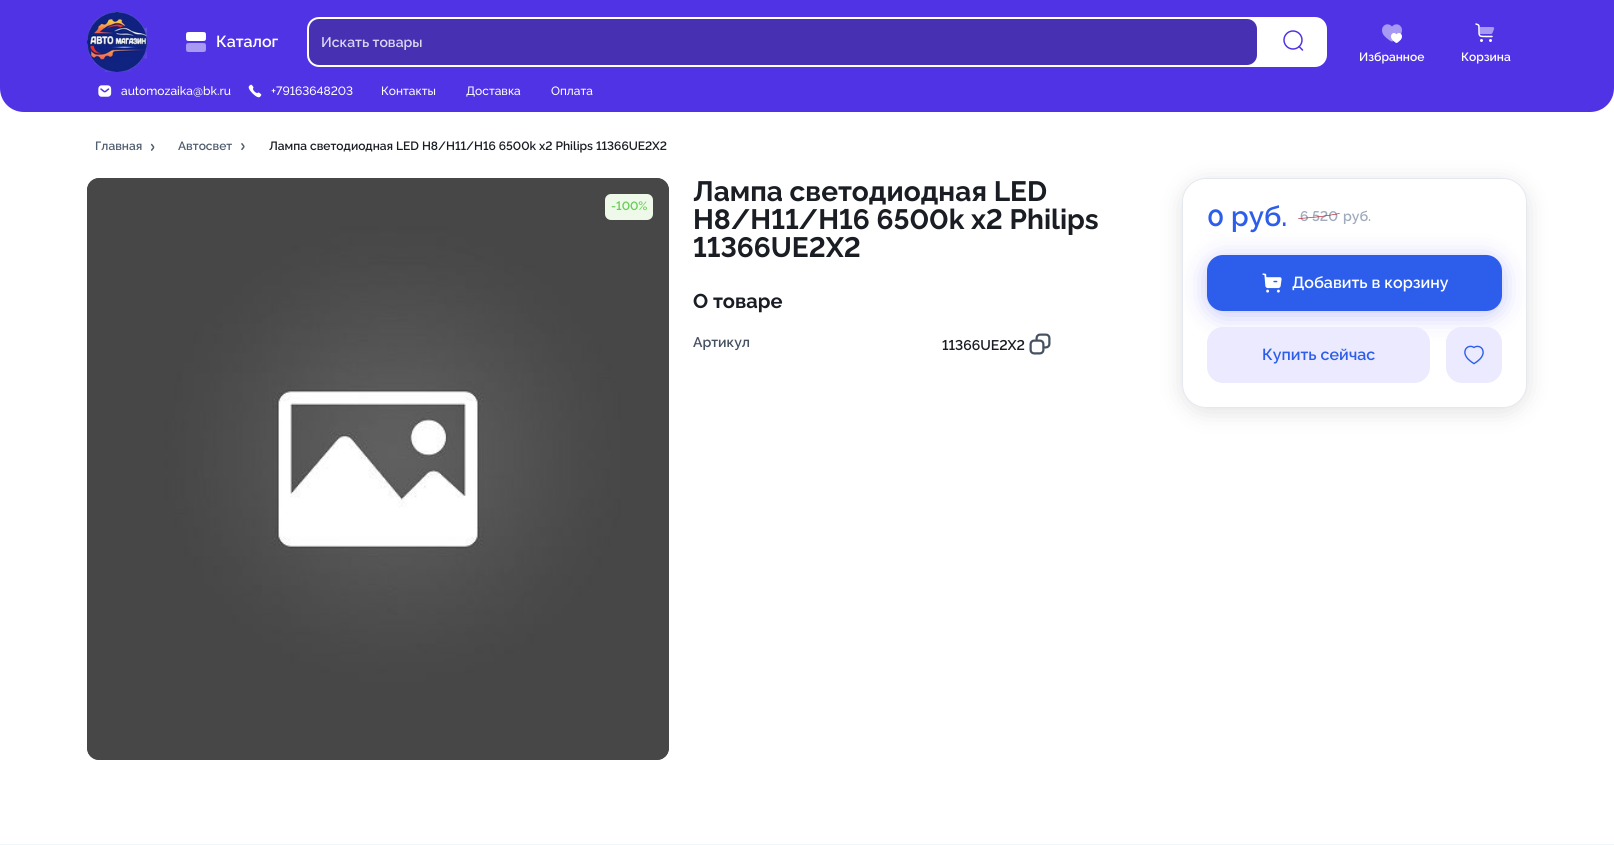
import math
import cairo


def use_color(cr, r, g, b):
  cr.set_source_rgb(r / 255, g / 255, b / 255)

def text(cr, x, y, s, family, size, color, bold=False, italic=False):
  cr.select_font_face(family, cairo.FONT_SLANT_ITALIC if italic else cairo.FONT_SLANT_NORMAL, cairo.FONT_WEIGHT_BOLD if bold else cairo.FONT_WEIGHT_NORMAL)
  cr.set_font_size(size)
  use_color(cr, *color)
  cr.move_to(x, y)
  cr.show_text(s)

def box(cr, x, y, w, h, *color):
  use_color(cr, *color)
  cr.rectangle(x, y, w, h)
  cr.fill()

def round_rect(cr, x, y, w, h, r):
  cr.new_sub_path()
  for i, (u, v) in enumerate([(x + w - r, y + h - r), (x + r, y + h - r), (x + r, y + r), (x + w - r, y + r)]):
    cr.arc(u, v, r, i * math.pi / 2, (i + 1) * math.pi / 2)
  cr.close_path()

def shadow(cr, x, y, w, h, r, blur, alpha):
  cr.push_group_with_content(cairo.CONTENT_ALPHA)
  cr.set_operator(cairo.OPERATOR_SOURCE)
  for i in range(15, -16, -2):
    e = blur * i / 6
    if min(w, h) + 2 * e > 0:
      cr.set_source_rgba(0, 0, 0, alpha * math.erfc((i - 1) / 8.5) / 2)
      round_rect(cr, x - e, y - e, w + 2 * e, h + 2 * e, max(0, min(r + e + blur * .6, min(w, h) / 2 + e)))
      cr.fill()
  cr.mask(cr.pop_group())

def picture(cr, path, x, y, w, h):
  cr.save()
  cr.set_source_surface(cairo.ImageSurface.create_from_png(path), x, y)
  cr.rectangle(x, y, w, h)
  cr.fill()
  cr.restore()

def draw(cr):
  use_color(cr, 255, 255, 255)
  cr.paint()
  use_color(cr, 80, 51, 229)
  cr.new_path()
  cr.move_to(0, 0)
  cr.line_to(1614, 0)
  cr.line_to(1614, 88)
  cr.curve_to(1614, 101.5, 1603.5, 112, 1590, 112)
  cr.line_to(24, 112)
  cr.curve_to(10.5, 112, 0, 101.5, 0, 88)
  cr.close_path()
  cr.fill()
  picture(cr, "img_01.png", 87, 12, 60, 60)
  picture(cr, "img_02.png", 186, 32, 20, 20)
  use_color(cr, 255, 255, 255)
  round_rect(cr, 307, 17, 1020, 50, 12)
  cr.fill()
  use_color(cr, 71, 49, 178)
  round_rect(cr, 309, 19, 948, 46, 10)
  cr.fill()
  cr.arc(1293, 40, 9, 0, 2 * math.pi)
  use_color(cr, 80, 51, 229)
  cr.set_line_width(1.5)
  cr.stroke()
  cr.new_path()
  cr.move_to(1299, 46.5)
  cr.line_to(1302.5, 50)
  cr.set_line_cap(cairo.LINE_CAP_ROUND)
  cr.set_line_join(cairo.LINE_JOIN_ROUND)
  cr.stroke()
  picture(cr, "img_03.png", 1382, 24, 20, 19)
  picture(cr, "img_04.png", 1475, 23, 20, 19)
  picture(cr, "img_05.png", 98, 85, 14, 12)
  picture(cr, "img_06.png", 248, 84, 14, 14)
  picture(cr, "img_07.png", 150, 143, 5, 8)
  picture(cr, "img_08.png", 241, 143, 4, 8)
  use_color(cr, 71, 71, 71)
  round_rect(cr, 87, 178, 582, 582, 12)
  cr.fill()
  picture(cr, "img_09.png", 87, 178, 582, 582)
  use_color(cr, 238, 249, 234)
  round_rect(cr, 605, 194, 48, 26, 6)
  cr.fill()
  picture(cr, "img_10.png", 1029, 333, 22, 22)
  use_color(cr, 0, 0, 0)
  shadow(cr, 1182, 182, 345, 230, 24, 12, 0.12)
  use_color(cr, 255, 255, 255)
  round_rect(cr, 1182.5, 178.5, 344, 229, 23.5)
  cr.fill_preserve()
  use_color(cr, 228, 233, 240)
  cr.set_line_width(1)
  cr.set_line_cap(cairo.LINE_CAP_BUTT)
  cr.set_line_join(cairo.LINE_JOIN_MITER)
  cr.stroke()
  use_color(cr, 197, 197, 250)
  shadow(cr, 1207, 259, 295, 56, 16, 12, 1)
  use_color(cr, 44, 94, 235)
  round_rect(cr, 1207, 255, 295, 56, 16)
  cr.fill()
  picture(cr, "img_11.png", 1262, 273, 20, 20)
  use_color(cr, 235, 234, 254)
  round_rect(cr, 1207, 327, 223, 56, 16)
  cr.fill()
  round_rect(cr, 1446, 327, 56, 56, 16)
  cr.fill()
  picture(cr, "img_12.png", 1464, 345, 20, 20)
  box(cr, 0, 844, 1614, 1, 242, 245, 250)
  text(cr, 216, 47, "Каталог", "Raleway SemiBold", 16, (255, 255, 255))
  text(cr, 321, 47, "Искать товары", "Raleway SemiBold", 14, (218, 214, 240))
  text(cr, 1359, 61, "Избранное", "Raleway SemiBold", 12, (255, 255, 255))
  text(cr, 1461, 61, "Корзина", "Raleway SemiBold", 12, (255, 255, 255))
  text(cr, 121, 95, "automozaika@bk.ru", "Raleway Medium", 12, (255, 255, 255))
  text(cr, 271, 95, "+79163648203", "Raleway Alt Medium", 12, (255, 255, 255))
  text(cr, 381, 95, "Контакты", "Raleway Medium", 12, (255, 255, 255))
  text(cr, 466, 95, "Доставка", "Raleway Medium", 12, (255, 255, 255))
  text(cr, 551, 95, "Оплата", "Raleway Medium", 12, (255, 255, 255))
  text(cr, 95, 150, "Главная", "Raleway SemiBold", 12, (81, 94, 112))
  text(cr, 178, 150, "Автосвет", "Raleway SemiBold", 12, (81, 94, 112))
  text(cr, 269, 150, "Лампа светодиодная LED H8/H11/H16 6500k x2 Philips 11366UE2X2", "Raleway Alt SemiBold", 12, (26, 30, 36))
  text(cr, 611, 210, "-100%", "Raleway Alt SemiBold", 12, (101, 205, 83))
  text(cr, 693, 201, "Лампа светодиодная LED", "Raleway", 28, (26, 30, 36), bold=True)
  text(cr, 693, 229, "H8/H11/H16 6500k x2 Philips", "Raleway Alt", 28, (26, 30, 36), bold=True)
  text(cr, 693, 257, "11366UE2X2", "Raleway Alt", 28, (26, 30, 36), bold=True)
  text(cr, 693, 308, "О товаре", "Raleway", 20, (26, 30, 36), bold=True)
  text(cr, 693, 347, "Артикул", "Raleway SemiBold", 14, (70, 81, 97))
  text(cr, 942, 350, "11366UE2X2", "Raleway Alt SemiBold", 14, (26, 30, 36))
  text(cr, 1207, 226, "0 руб.", "Raleway SemiBold", 28, (44, 94, 235))
  text(cr, 1300, 221, "6 520", "Raleway Alt SemiBold", 14, (160, 172, 189))
  cr.new_path()
  cr.move_to(1298.5, 218.5)
  cr.curve_to(1314.5, 217.5, 1323.5, 216.5, 1339.5, 213.5)
  use_color(cr, 177, 14, 28)
  cr.set_line_width(0.6)
  cr.set_line_cap(cairo.LINE_CAP_ROUND)
  cr.set_line_join(cairo.LINE_JOIN_ROUND)
  cr.stroke()
  text(cr, 1343, 221, "руб.", "Raleway SemiBold", 14, (160, 172, 189))
  text(cr, 1292, 288, "Добавить в корзину", "Raleway SemiBold", 16, (255, 255, 255))
  text(cr, 1262, 360, "Купить сейчас", "Raleway SemiBold", 16, (44, 94, 235))


surface = cairo.ImageSurface(cairo.FORMAT_RGB24, 1614, 845)
cr = cairo.Context(surface)
options = cairo.FontOptions()
options.set_hint_metrics(cairo.HINT_METRICS_OFF)
options.set_hint_style(cairo.HINT_STYLE_NONE)
cr.set_font_options(options)
cr.set_miter_limit(4)
draw(cr)
surface.write_to_png("out.png")
